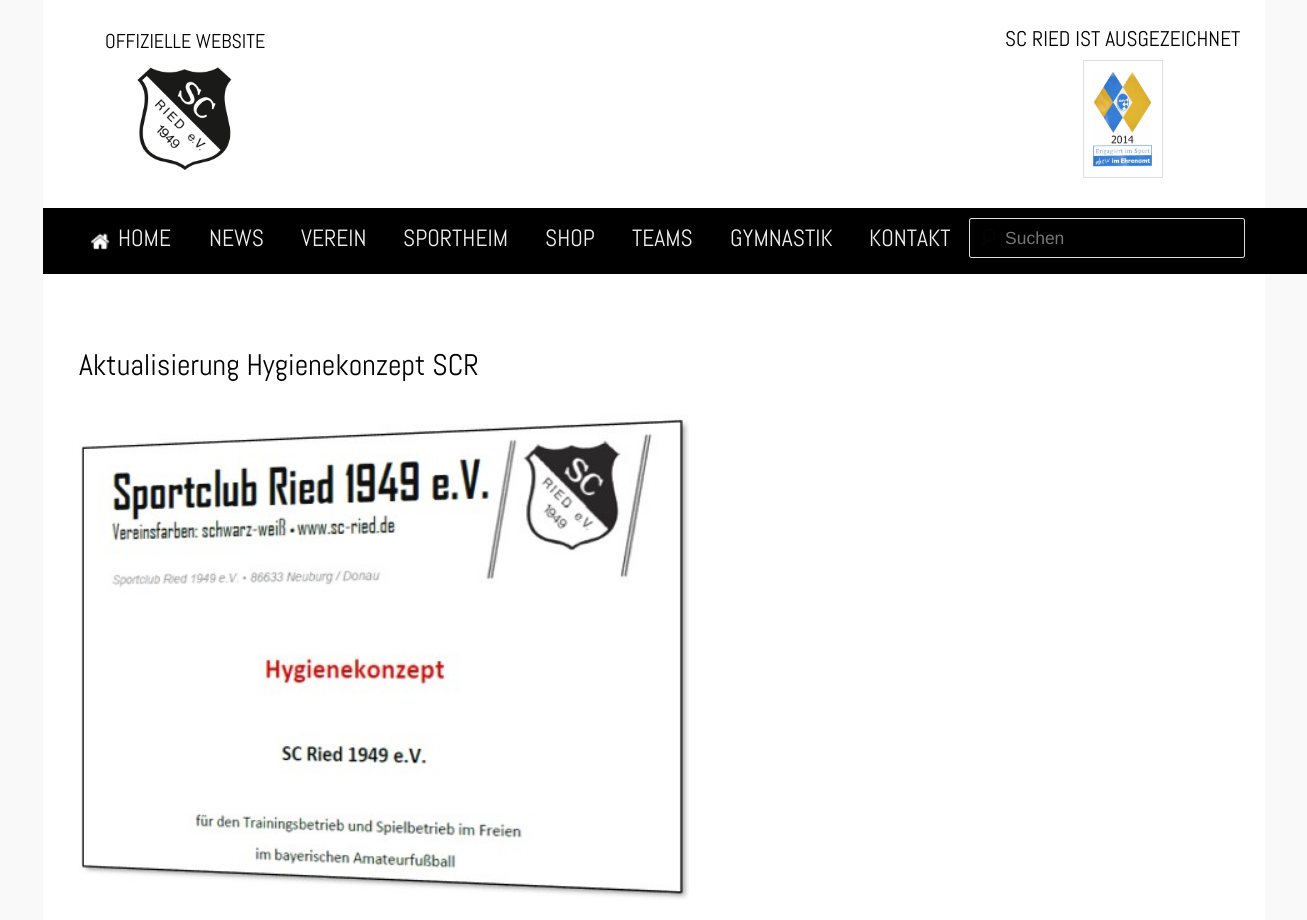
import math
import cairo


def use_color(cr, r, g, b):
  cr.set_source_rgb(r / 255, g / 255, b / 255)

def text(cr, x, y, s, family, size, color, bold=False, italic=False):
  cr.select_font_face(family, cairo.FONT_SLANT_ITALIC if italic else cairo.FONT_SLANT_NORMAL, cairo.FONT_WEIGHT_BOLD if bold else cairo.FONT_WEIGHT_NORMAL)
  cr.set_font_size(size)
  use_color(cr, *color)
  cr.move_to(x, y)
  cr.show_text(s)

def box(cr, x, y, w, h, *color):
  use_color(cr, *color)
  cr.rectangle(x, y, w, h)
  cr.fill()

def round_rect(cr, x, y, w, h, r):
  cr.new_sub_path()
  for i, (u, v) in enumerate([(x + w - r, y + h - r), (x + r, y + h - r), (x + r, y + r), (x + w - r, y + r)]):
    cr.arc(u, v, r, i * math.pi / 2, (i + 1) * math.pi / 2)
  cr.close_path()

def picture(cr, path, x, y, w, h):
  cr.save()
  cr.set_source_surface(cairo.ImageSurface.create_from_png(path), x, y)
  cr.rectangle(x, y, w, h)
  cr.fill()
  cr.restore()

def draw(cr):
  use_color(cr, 249, 249, 249)
  cr.paint()
  box(cr, 43, 0, 1222, 208, 255, 255, 255)
  picture(cr, "img_01.png", 137, 67, 95, 103)
  cr.rectangle(1083.5, 60.5, 79, 117)
  use_color(cr, 221, 221, 221)
  cr.set_line_width(1)
  cr.stroke()
  picture(cr, "img_02.png", 1093, 72, 59, 95)
  box(cr, 43, 208, 1264, 66, 0, 0, 0)
  picture(cr, "img_03.png", 90, 233, 20, 17)
  picture(cr, "img_04.png", 982, 229, 13, 18)
  round_rect(cr, 969.5, 218.5, 275, 39, 2)
  use_color(cr, 221, 221, 221)
  cr.stroke()
  box(cr, 43, 274, 1222, 646, 255, 255, 255)
  picture(cr, "img_05.png", 79, 414, 610, 486)
  text(cr, 105, 48, "OFFIZIELLE WEBSITE", "Abel", 20, (0, 0, 0))
  text(cr, 1005, 46, "SC RIED IST AUSGEZEICHNET", "Abel", 21.25, (0, 0, 0))
  text(cr, 118, 246, "HOME", "Abel", 23.5, (238, 238, 238))
  text(cr, 209, 246, "NEWS", "Abel", 23.5, (238, 238, 238))
  text(cr, 301, 246, "VEREIN", "Abel", 23.5, (238, 238, 238))
  text(cr, 403, 246, "SPORTHEIM", "Abel", 23.5, (238, 238, 238))
  text(cr, 545, 246, "SHOP", "Abel", 23.5, (238, 238, 238))
  text(cr, 632, 246, "TEAMS", "Abel", 23.5, (238, 238, 238))
  text(cr, 730, 246, "GYMNASTIK", "Abel", 23.5, (238, 238, 238))
  text(cr, 869, 246, "KONTAKT", "Abel", 23.5, (238, 238, 238))
  text(cr, 1005, 244, "Suchen", "Liberation Sans", 17.5, (117, 117, 117))
  text(cr, 79, 375, "Aktualisierung Hygienekonzept SCR", "Abel", 29.75, (0, 0, 0))


surface = cairo.ImageSurface(cairo.FORMAT_RGB24, 1307, 920)
cr = cairo.Context(surface)
options = cairo.FontOptions()
options.set_hint_metrics(cairo.HINT_METRICS_OFF)
options.set_hint_style(cairo.HINT_STYLE_NONE)
cr.set_font_options(options)
cr.set_miter_limit(4)
draw(cr)
surface.write_to_png("out.png")
